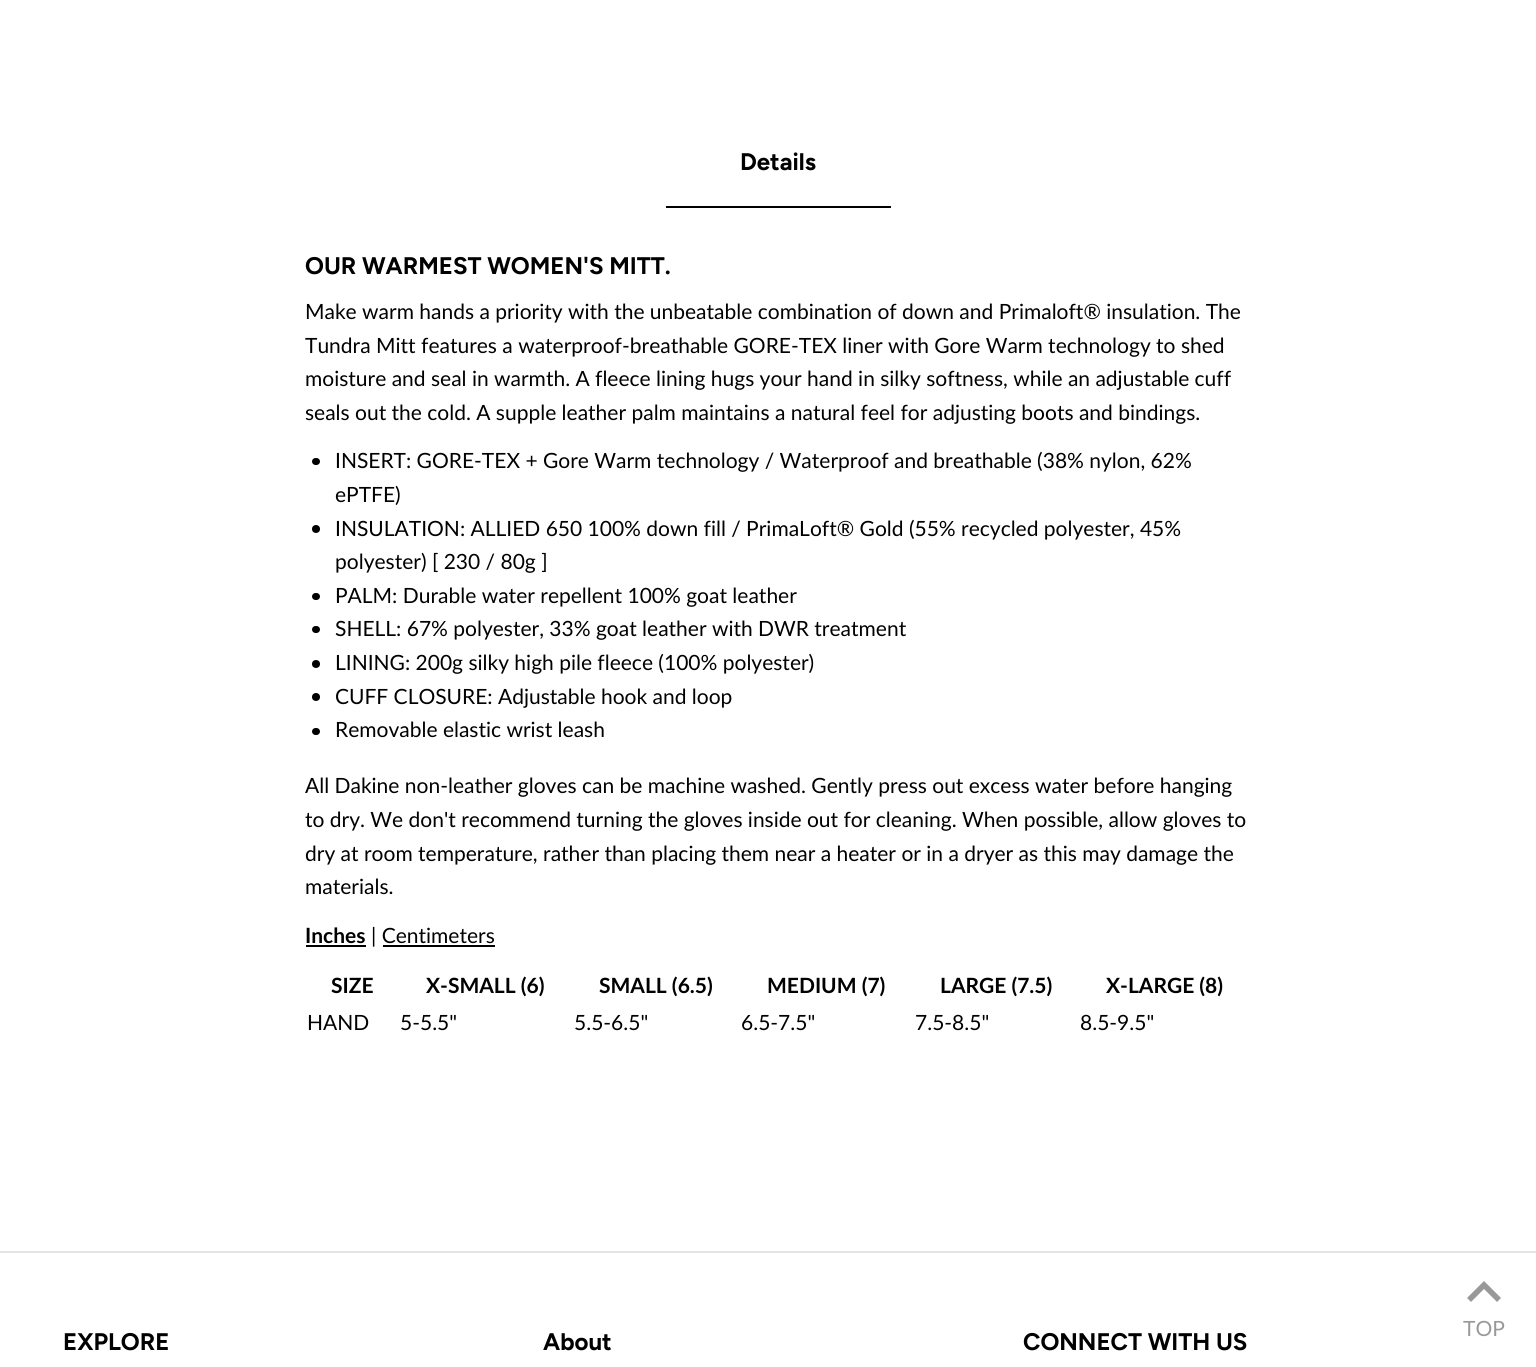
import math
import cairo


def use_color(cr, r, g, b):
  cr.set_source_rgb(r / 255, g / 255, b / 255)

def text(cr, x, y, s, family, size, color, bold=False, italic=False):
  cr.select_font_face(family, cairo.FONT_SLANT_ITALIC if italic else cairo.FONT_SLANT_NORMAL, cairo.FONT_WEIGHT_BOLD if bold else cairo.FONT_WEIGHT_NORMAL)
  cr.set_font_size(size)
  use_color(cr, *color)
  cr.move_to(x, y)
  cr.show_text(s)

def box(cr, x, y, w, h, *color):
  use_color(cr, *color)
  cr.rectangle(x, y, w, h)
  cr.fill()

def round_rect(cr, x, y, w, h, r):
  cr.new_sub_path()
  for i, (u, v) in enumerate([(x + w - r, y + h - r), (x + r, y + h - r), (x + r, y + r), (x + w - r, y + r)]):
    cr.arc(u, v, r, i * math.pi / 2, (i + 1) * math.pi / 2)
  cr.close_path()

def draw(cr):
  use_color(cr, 255, 255, 255)
  cr.paint()
  box(cr, 666, 206, 225, 2, 0, 0, 0)
  round_rect(cr, 312, 458, 8, 7, 3.5)
  cr.fill()
  cr.arc(316, 529, 4, 0, 2 * math.pi)
  cr.fill()
  round_rect(cr, 312, 593, 8, 7, 3.5)
  cr.fill()
  round_rect(cr, 312, 626, 8, 7, 3.5)
  cr.fill()
  cr.arc(316, 664, 4, 0, 2 * math.pi)
  cr.fill()
  cr.arc(316, 697, 4, 0, 2 * math.pi)
  cr.fill()
  round_rect(cr, 312, 728, 8, 7, 3.5)
  cr.fill()
  box(cr, 306, 945, 60, 2, 0, 0, 0)
  box(cr, 383, 945, 112, 2, 0, 0, 0)
  box(cr, 0, 1251, 1536, 2, 229, 229, 229)
  use_color(cr, 153, 153, 153)
  cr.new_path()
  cr.move_to(1484, 1281)
  cr.line_to(1467, 1298)
  cr.line_to(1471, 1302)
  cr.line_to(1484, 1289)
  cr.line_to(1497, 1302)
  cr.line_to(1501, 1298)
  cr.close_path()
  cr.fill()
  text(cr, 740, 170, "Details", "Figtree", 24, (0, 0, 0), bold=True)
  text(cr, 305, 274, "OUR WARMEST WOMEN'S MITT.", "Figtree", 24, (0, 0, 0), bold=True)
  text(cr, 305, 319, "Make warm hands a priority with the unbeatable combination of down and Primaloft® insulation. The", "Lato", 21, (0, 0, 0))
  text(cr, 305, 353, "Tundra Mitt features a waterproof-breathable GORE-TEX liner with Gore Warm technology to shed", "Lato", 21, (0, 0, 0))
  text(cr, 305, 386, "moisture and seal in warmth. A fleece lining hugs your hand in silky softness, while an adjustable cuff", "Lato", 21, (0, 0, 0))
  text(cr, 305, 420, "seals out the cold. A supple leather palm maintains a natural feel for adjusting boots and bindings.", "Lato", 21, (0, 0, 0))
  text(cr, 335, 468, "INSERT: GORE-TEX + Gore Warm technology / Waterproof and breathable (38% nylon, 62%", "Lato", 21, (0, 0, 0))
  text(cr, 335, 502, "ePTFE)", "Lato", 21, (0, 0, 0))
  text(cr, 335, 536, "INSULATION: ALLIED 650 100% down fill / PrimaLoft® Gold (55% recycled polyester, 45%", "Lato", 21, (0, 0, 0))
  text(cr, 335, 569, "polyester) [ 230 / 80g ]", "Lato", 21, (0, 0, 0))
  text(cr, 335, 603, "PALM: Durable water repellent 100% goat leather", "Lato", 21, (0, 0, 0))
  text(cr, 335, 636, "SHELL: 67% polyester, 33% goat leather with DWR treatment", "Lato", 21, (0, 0, 0))
  text(cr, 335, 670, "LINING: 200g silky high pile fleece (100% polyester)", "Lato", 21, (0, 0, 0))
  text(cr, 335, 704, "CUFF CLOSURE: Adjustable hook and loop", "Lato", 21, (0, 0, 0))
  text(cr, 335, 737, "Removable elastic wrist leash", "Lato", 21, (0, 0, 0))
  text(cr, 305, 793, "All Dakine non-leather gloves can be machine washed. Gently press out excess water before hanging", "Lato", 21, (0, 0, 0))
  text(cr, 305, 827, "to dry. We don't recommend turning the gloves inside out for cleaning. When possible, allow gloves to", "Lato", 21, (0, 0, 0))
  text(cr, 305, 861, "dry at room temperature, rather than placing them near a heater or in a dryer as this may damage the", "Lato", 21, (0, 0, 0))
  text(cr, 305, 894, "materials.", "Lato", 21, (0, 0, 0))
  text(cr, 305, 943, "Inches", "Lato", 21, (0, 0, 0), bold=True)
  text(cr, 371, 943, "| Centimeters", "Lato", 21, (0, 0, 0))
  text(cr, 331, 993, "SIZE", "Lato", 21, (0, 0, 0), bold=True)
  text(cr, 426, 993, "X-SMALL (6)", "Lato", 21, (0, 0, 0), bold=True)
  text(cr, 599, 993, "SMALL (6.5)", "Lato", 21, (0, 0, 0), bold=True)
  text(cr, 767, 993, "MEDIUM (7)", "Lato", 21, (0, 0, 0), bold=True)
  text(cr, 940, 993, "LARGE (7.5)", "Lato", 21, (0, 0, 0), bold=True)
  text(cr, 1106, 993, "X-LARGE (8)", "Lato", 21, (0, 0, 0), bold=True)
  text(cr, 307, 1030, "HAND", "Lato", 21, (0, 0, 0))
  text(cr, 400, 1030, "5-5.5\"", "Lato", 21, (0, 0, 0))
  text(cr, 574, 1030, "5.5-6.5\"", "Lato", 21, (0, 0, 0))
  text(cr, 741, 1030, "6.5-7.5\"", "Lato", 21, (0, 0, 0))
  text(cr, 915, 1030, "7.5-8.5\"", "Lato", 21, (0, 0, 0))
  text(cr, 1080, 1030, "8.5-9.5\"", "Lato", 21, (0, 0, 0))
  text(cr, 63, 1350, "EXPLORE", "Figtree", 24, (0, 0, 0), bold=True)
  text(cr, 543, 1350, "About", "Figtree", 24, (0, 0, 0), bold=True)
  text(cr, 1023, 1350, "CONNECT WITH US", "Figtree", 24, (0, 0, 0), bold=True)
  text(cr, 1463, 1336, "TOP", "Lato", 21, (153, 153, 153))


surface = cairo.ImageSurface(cairo.FORMAT_RGB24, 1536, 1367)
cr = cairo.Context(surface)
options = cairo.FontOptions()
options.set_hint_metrics(cairo.HINT_METRICS_OFF)
options.set_hint_style(cairo.HINT_STYLE_NONE)
cr.set_font_options(options)
cr.set_miter_limit(4)
draw(cr)
surface.write_to_png("out.png")
